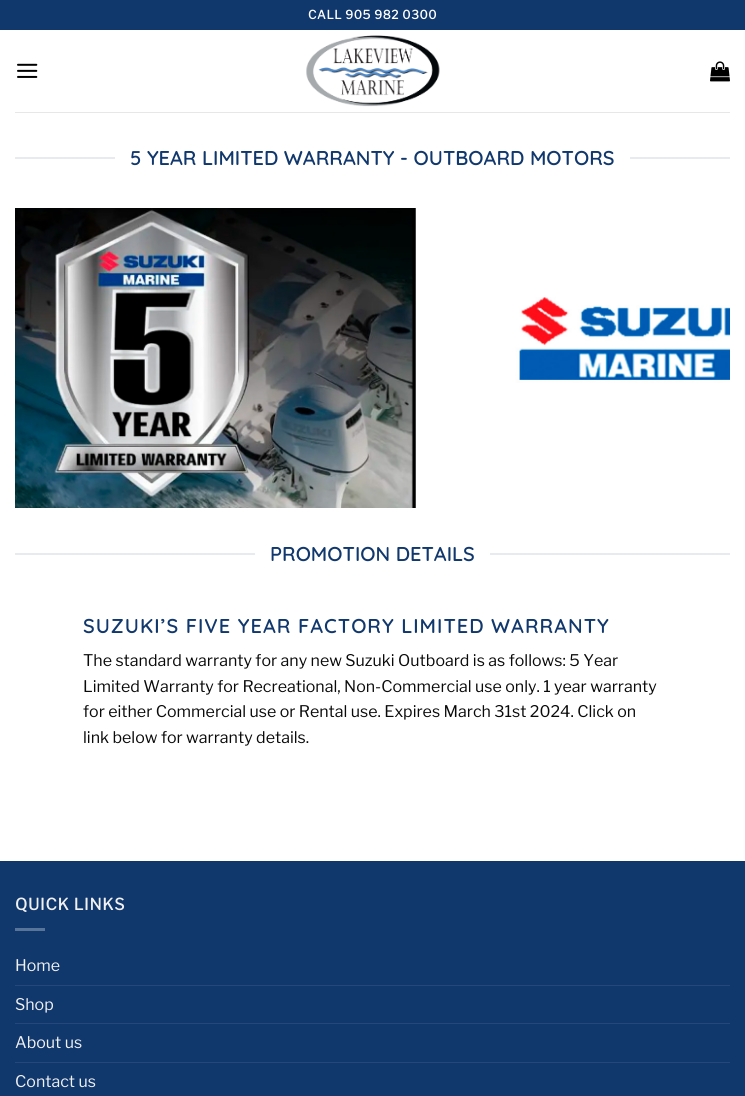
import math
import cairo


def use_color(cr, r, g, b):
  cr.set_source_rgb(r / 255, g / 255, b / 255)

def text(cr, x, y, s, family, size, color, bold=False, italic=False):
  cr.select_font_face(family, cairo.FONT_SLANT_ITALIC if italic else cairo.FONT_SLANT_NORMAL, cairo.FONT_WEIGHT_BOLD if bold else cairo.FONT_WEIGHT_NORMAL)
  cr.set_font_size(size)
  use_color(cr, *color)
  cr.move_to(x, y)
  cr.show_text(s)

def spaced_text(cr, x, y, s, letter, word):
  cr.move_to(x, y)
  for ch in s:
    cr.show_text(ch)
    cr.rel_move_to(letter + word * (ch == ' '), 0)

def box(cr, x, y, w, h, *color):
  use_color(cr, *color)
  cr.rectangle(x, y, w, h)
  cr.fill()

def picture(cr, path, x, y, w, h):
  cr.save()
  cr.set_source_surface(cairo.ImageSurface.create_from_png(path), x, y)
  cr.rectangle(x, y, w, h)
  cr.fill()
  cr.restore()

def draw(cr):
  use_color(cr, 255, 255, 255)
  cr.paint()
  box(cr, 0, 0, 745, 30, 17, 56, 109)
  picture(cr, "img_01.png", 17, 63, 21, 15)
  picture(cr, "img_02.png", 306, 35, 134, 72)
  picture(cr, "img_03.png", 710, 61, 20, 21)
  box(cr, 15, 112, 715, 1, 231, 231, 231)
  box(cr, 15, 157, 100, 2, 231, 235, 240)
  box(cr, 630, 157, 100, 2, 231, 235, 240)
  picture(cr, "img_04.png", 15, 208, 715, 300)
  box(cr, 15, 553, 240, 2, 231, 235, 240)
  box(cr, 490, 553, 240, 2, 231, 235, 240)
  box(cr, 0, 862, 745, 234, 17, 56, 109)
  box(cr, 0, 861, 745, 1, 16, 53, 104)
  box(cr, 15, 928, 30, 3, 88, 116, 153)
  box(cr, 15, 985, 715, 1, 36, 72, 121)
  box(cr, 15, 1023, 715, 1, 36, 72, 121)
  box(cr, 15, 1062, 715, 1, 36, 72, 121)
  cr.select_font_face("Libre Franklin", cairo.FONT_SLANT_NORMAL, cairo.FONT_WEIGHT_BOLD)
  cr.set_font_size(12)
  use_color(cr, 255, 255, 255)
  spaced_text(cr, 308, 19, "CALL 905 982 0300", 0.6, 0)
  text(cr, 130, 165, "5 YEAR LIMITED WARRANTY - OUTBOARD MOTORS", "Quicksand SemiBold", 20, (17, 56, 109))
  text(cr, 270, 561, "PROMOTION DETAILS", "Quicksand SemiBold", 20, (17, 56, 109))
  spaced_text(cr, 83, 633, "SUZUKI’S FIVE YEAR FACTORY LIMITED WARRANTY", 1, 0)
  text(cr, 83, 666, "The standard warranty for any new Suzuki Outboard is as follows: 5 Year", "Libre Franklin", 16, (10, 10, 10))
  text(cr, 83, 692, "Limited Warranty for Recreational, Non-Commercial use only. 1 year warranty", "Libre Franklin", 16, (10, 10, 10))
  text(cr, 83, 717, "for either Commercial use or Rental use. Expires March 31st 2024. Click on", "Libre Franklin", 16, (10, 10, 10))
  text(cr, 83, 743, "link below for warranty details.", "Libre Franklin", 16, (10, 10, 10))
  cr.select_font_face("Libre Franklin", cairo.FONT_SLANT_NORMAL, cairo.FONT_WEIGHT_BOLD)
  use_color(cr, 241, 241, 241)
  spaced_text(cr, 15, 910, "QUICK LINKS", 0.75, 0)
  text(cr, 15, 971, "Home", "Libre Franklin", 16, (241, 241, 241))
  text(cr, 15, 1010, "Shop", "Libre Franklin", 16, (241, 241, 241))
  text(cr, 15, 1048, "About us", "Libre Franklin", 16, (241, 241, 241))
  text(cr, 15, 1087, "Contact us", "Libre Franklin", 16, (241, 241, 241))


surface = cairo.ImageSurface(cairo.FORMAT_RGB24, 745, 1096)
cr = cairo.Context(surface)
options = cairo.FontOptions()
options.set_hint_metrics(cairo.HINT_METRICS_OFF)
options.set_hint_style(cairo.HINT_STYLE_NONE)
cr.set_font_options(options)
cr.set_miter_limit(4)
draw(cr)
surface.write_to_png("out.png")
